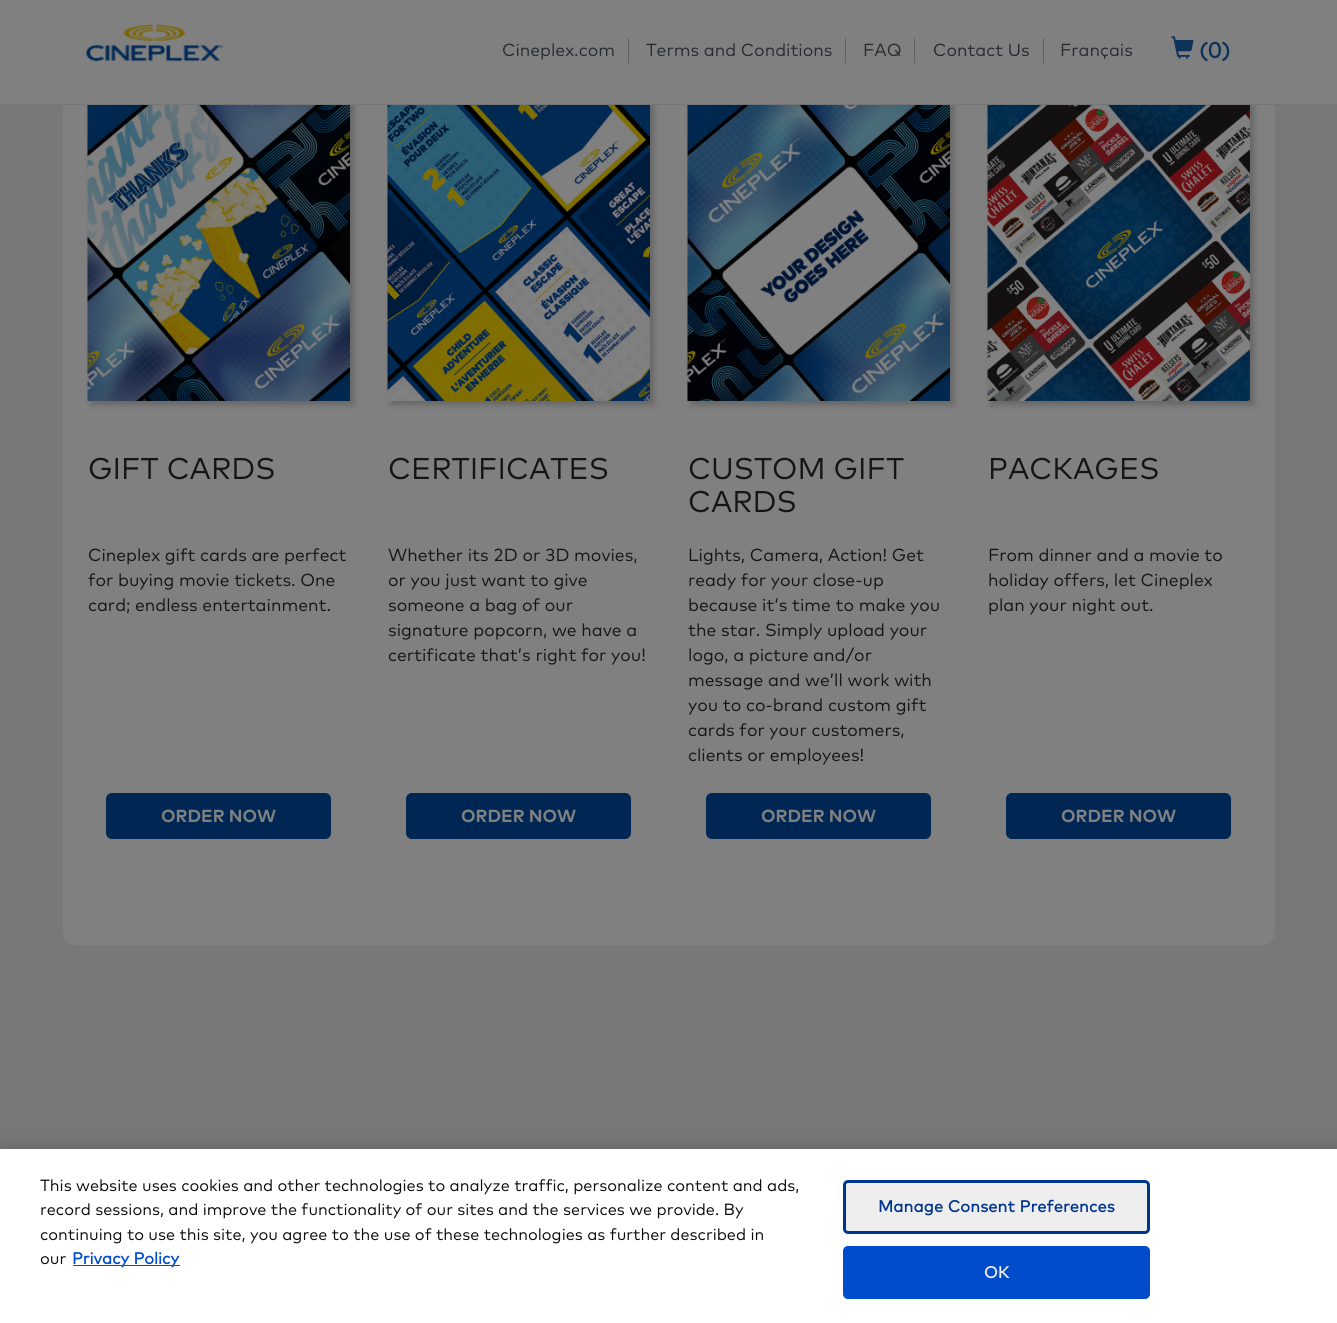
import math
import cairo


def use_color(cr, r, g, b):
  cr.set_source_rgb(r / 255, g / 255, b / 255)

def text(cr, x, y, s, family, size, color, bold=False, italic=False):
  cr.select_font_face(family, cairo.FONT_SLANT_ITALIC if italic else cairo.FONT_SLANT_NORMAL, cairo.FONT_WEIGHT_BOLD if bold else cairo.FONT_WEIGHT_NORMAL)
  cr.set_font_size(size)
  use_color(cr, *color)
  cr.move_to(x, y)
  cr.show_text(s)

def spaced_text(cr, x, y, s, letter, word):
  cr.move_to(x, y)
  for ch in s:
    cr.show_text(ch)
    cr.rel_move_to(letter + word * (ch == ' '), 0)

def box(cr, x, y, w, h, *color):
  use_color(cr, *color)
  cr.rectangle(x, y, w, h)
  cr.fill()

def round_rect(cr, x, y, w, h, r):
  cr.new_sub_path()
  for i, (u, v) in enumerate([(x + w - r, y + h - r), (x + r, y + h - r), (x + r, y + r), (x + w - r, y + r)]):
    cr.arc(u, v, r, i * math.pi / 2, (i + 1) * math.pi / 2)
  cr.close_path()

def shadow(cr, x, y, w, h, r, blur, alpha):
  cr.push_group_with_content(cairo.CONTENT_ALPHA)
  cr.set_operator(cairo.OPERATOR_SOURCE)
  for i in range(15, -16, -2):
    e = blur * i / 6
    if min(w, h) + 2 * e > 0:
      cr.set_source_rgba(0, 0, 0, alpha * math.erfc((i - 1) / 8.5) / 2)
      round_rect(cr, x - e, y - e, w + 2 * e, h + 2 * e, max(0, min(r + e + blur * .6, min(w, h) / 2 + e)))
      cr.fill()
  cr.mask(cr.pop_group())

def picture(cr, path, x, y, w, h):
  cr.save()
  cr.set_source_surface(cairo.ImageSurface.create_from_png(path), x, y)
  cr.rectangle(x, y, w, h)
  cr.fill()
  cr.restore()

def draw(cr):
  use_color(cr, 120, 120, 120)
  cr.paint()
  use_color(cr, 128, 128, 128)
  round_rect(cr, 63, -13, 1212, 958, 13)
  cr.fill()
  use_color(cr, 0, 0, 0)
  shadow(cr, 91, 105, 263, 300, 0, 3, 0.2)
  shadow(cr, 391, 105, 263, 300, 0, 3, 0.2)
  shadow(cr, 691, 105, 263, 300, 0, 3, 0.2)
  cr.save()
  cr.set_fill_rule(cairo.FILL_RULE_EVEN_ODD)
  cr.new_path()
  cr.move_to(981, 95)
  cr.line_to(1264, 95)
  cr.line_to(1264, 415)
  cr.line_to(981, 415)
  cr.close_path()
  cr.move_to(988, 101)
  cr.line_to(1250, 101)
  cr.line_to(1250, 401)
  cr.line_to(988, 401)
  cr.close_path()
  cr.clip()
  shadow(cr, 991, 105, 263, 300, 0, 3, 0.2)
  cr.restore()
  box(cr, 0, 0, 1337, 104, 128, 128, 128)
  box(cr, 0, 104, 1337, 1, 117, 117, 117)
  picture(cr, "img_01.png", 86, 24, 137, 38)
  box(cr, 628, 38, 1, 25, 98, 98, 98)
  box(cr, 845, 38, 1, 25, 98, 98, 98)
  box(cr, 914, 38, 1, 25, 98, 98, 98)
  box(cr, 1043, 38, 1, 25, 98, 98, 98)
  picture(cr, "img_02.png", 1171, 36, 23, 23)
  picture(cr, "img_03.png", 87, 105, 263, 296)
  use_color(cr, 0, 39, 84)
  round_rect(cr, 106.5, 793.5, 224, 45, 5.5)
  cr.fill_preserve()
  cr.set_line_width(1)
  cr.stroke()
  picture(cr, "img_04.png", 387, 105, 263, 296)
  round_rect(cr, 406.5, 793.5, 224, 45, 5.5)
  cr.fill_preserve()
  cr.stroke()
  picture(cr, "img_05.png", 687, 105, 263, 296)
  round_rect(cr, 706.5, 793.5, 224, 45, 5.5)
  cr.fill_preserve()
  cr.stroke()
  picture(cr, "img_06.png", 987, 105, 263, 296)
  round_rect(cr, 1006.5, 793.5, 224, 45, 5.5)
  cr.fill_preserve()
  cr.stroke()
  use_color(cr, 0, 0, 0)
  shadow(cr, 0, 1149, 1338, 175, 0, 11, 0.2)
  box(cr, 0, 1149, 1337, 174, 255, 255, 255)
  box(cr, 73, 1265, 107, 1, 0, 76, 204)
  use_color(cr, 238, 238, 238)
  round_rect(cr, 844.5, 1181.5, 304, 51, 3.5)
  cr.fill_preserve()
  use_color(cr, 0, 53, 142)
  cr.set_line_width(3)
  cr.stroke()
  use_color(cr, 0, 76, 204)
  round_rect(cr, 843.5, 1246.5, 306, 52, 4.5)
  cr.fill_preserve()
  cr.set_line_width(1)
  cr.stroke()
  text(cr, 502, 56, "Cineplex.com", "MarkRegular", 17.5, (40, 43, 48))
  text(cr, 646, 56, "Terms and Conditions", "MarkRegular", 17.5, (40, 43, 48))
  text(cr, 863, 56, "FAQ", "MarkRegular", 17.5, (40, 43, 48))
  text(cr, 933, 56, "Contact Us", "MarkRegular", 17.5, (40, 43, 48))
  text(cr, 1060, 56, "Français", "MarkRegular", 17.5, (40, 43, 48))
  text(cr, 1199, 58, "(0)", "MarkRegular", 22, (14, 51, 91), bold=True)
  text(cr, 88, 479, "GIFT CARDS", "MarkRegular", 30, (23, 21, 19))
  text(cr, 88, 561, "Cineplex gift cards are perfect", "MarkRegular", 17.5, (23, 21, 19))
  text(cr, 88, 586, "for buying movie tickets. One", "MarkRegular", 17.5, (23, 21, 19))
  text(cr, 88, 611, "card; endless entertainment.", "MarkRegular", 17.5, (23, 21, 19))
  text(cr, 161, 822, "ORDER NOW", "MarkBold", 17.5, (128, 128, 128), bold=True)
  text(cr, 388, 479, "CERTIFICATES", "MarkRegular", 30, (23, 21, 19))
  text(cr, 388, 561, "Whether its 2D or 3D movies,", "MarkRegular", 17.5, (23, 21, 19))
  text(cr, 388, 586, "or you just want to give", "MarkRegular", 17.5, (23, 21, 19))
  text(cr, 388, 611, "someone a bag of our", "MarkRegular", 17.5, (23, 21, 19))
  text(cr, 388, 636, "signature popcorn, we have a", "MarkRegular", 17.5, (23, 21, 19))
  text(cr, 388, 661, "certificate that’s right for you!", "MarkRegular", 17.5, (23, 21, 19))
  text(cr, 461, 822, "ORDER NOW", "MarkBold", 17.5, (128, 128, 128), bold=True)
  text(cr, 688, 479, "CUSTOM GIFT", "MarkRegular", 30, (23, 21, 19))
  text(cr, 688, 512, "CARDS", "MarkRegular", 30, (23, 21, 19))
  text(cr, 688, 561, "Lights, Camera, Action! Get", "MarkRegular", 17.5, (23, 21, 19))
  text(cr, 688, 586, "ready for your close-up", "MarkRegular", 17.5, (23, 21, 19))
  text(cr, 688, 611, "because it’s time to make you", "MarkRegular", 17.5, (23, 21, 19))
  text(cr, 688, 636, "the star. Simply upload your", "MarkRegular", 17.5, (23, 21, 19))
  text(cr, 688, 661, "logo, a picture and/or", "MarkRegular", 17.5, (23, 21, 19))
  text(cr, 688, 686, "message and we’ll work with", "MarkRegular", 17.5, (23, 21, 19))
  text(cr, 688, 711, "you to co-brand custom gift", "MarkRegular", 17.5, (23, 21, 19))
  text(cr, 688, 736, "cards for your customers,", "MarkRegular", 17.5, (23, 21, 19))
  text(cr, 688, 761, "clients or employees!", "MarkRegular", 17.5, (23, 21, 19))
  text(cr, 761, 822, "ORDER NOW", "MarkBold", 17.5, (128, 128, 128), bold=True)
  text(cr, 988, 479, "PACKAGES", "MarkRegular", 30, (23, 21, 19))
  text(cr, 988, 561, "From dinner and a movie to", "MarkRegular", 17.5, (23, 21, 19))
  text(cr, 988, 586, "holiday offers, let Cineplex", "MarkRegular", 17.5, (23, 21, 19))
  text(cr, 988, 611, "plan your night out.", "MarkRegular", 17.5, (23, 21, 19))
  text(cr, 1061, 822, "ORDER NOW", "MarkBold", 17.5, (128, 128, 128), bold=True)
  text(cr, 40, 1191, "This website uses cookies and other technologies to analyze traffic, personalize content and ads,", "MarkRegular", 16.25, (10, 11, 13))
  text(cr, 40, 1215, "record sessions, and improve the functionality of our sites and the services we provide. By", "MarkRegular", 16.25, (10, 11, 13))
  text(cr, 40, 1240, "continuing to use this site, you agree to the use of these technologies as further described in", "MarkRegular", 16.25, (10, 11, 13))
  text(cr, 40, 1264, "our", "MarkRegular", 16.25, (10, 11, 13))
  text(cr, 72, 1264, "Privacy Policy", "MarkRegular", 16.25, (0, 76, 204), bold=True)
  use_color(cr, 0, 53, 142)
  spaced_text(cr, 878, 1212, "Manage Consent Preferences", 0.15, 0)
  use_color(cr, 238, 238, 238)
  spaced_text(cr, 984, 1278, "OK", 0.15, 0)


surface = cairo.ImageSurface(cairo.FORMAT_RGB24, 1337, 1323)
cr = cairo.Context(surface)
options = cairo.FontOptions()
options.set_hint_metrics(cairo.HINT_METRICS_OFF)
options.set_hint_style(cairo.HINT_STYLE_NONE)
cr.set_font_options(options)
cr.set_miter_limit(4)
draw(cr)
surface.write_to_png("out.png")
